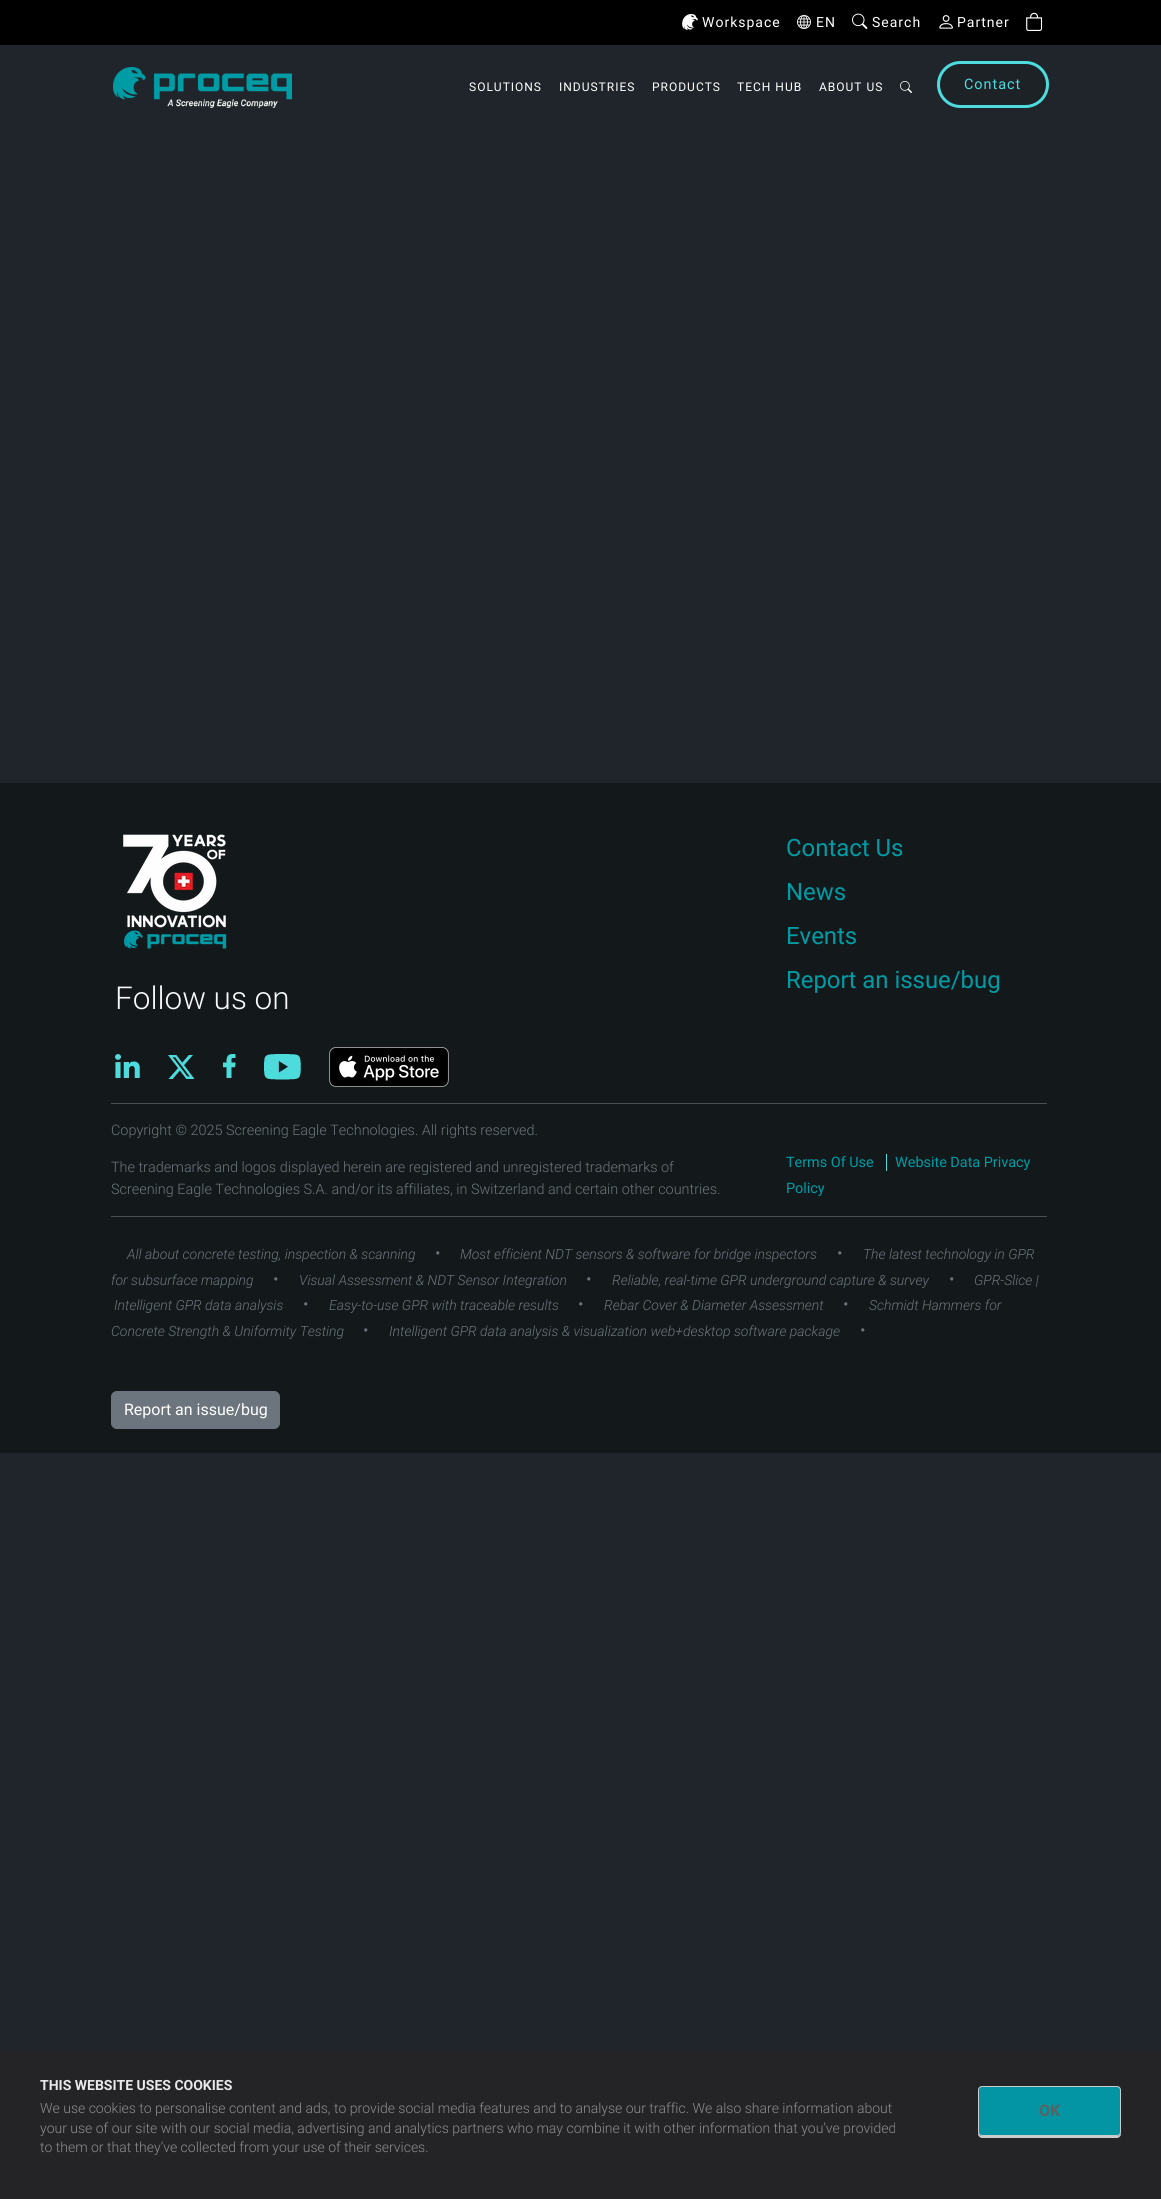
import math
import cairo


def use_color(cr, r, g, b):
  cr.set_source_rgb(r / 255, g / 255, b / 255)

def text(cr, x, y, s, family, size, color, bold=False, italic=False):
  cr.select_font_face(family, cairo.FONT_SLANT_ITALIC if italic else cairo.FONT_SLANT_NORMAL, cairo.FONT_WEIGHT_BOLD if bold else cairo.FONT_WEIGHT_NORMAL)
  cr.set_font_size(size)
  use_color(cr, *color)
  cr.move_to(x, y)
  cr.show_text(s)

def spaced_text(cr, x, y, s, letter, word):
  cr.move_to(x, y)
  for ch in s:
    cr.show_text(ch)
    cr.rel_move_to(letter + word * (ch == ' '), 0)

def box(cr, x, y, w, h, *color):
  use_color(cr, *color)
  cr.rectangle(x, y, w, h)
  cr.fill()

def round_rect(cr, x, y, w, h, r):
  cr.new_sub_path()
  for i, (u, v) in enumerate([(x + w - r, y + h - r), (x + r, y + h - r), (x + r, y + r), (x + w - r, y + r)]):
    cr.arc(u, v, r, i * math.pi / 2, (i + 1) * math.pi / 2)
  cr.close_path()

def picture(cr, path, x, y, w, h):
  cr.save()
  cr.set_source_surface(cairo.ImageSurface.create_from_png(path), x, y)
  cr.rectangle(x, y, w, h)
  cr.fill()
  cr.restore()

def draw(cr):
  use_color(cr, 31, 37, 42)
  cr.paint()
  box(cr, 0, 0, 1161, 45, 0, 0, 0)
  picture(cr, "img_01.png", 682, 14, 16, 16)
  picture(cr, "img_02.png", 797, 15, 14, 14)
  picture(cr, "img_03.png", 852, 13, 16, 16)
  picture(cr, "img_04.png", 939, 15, 14, 14)
  picture(cr, "img_05.png", 1026, 12, 17, 19)
  picture(cr, "img_06.png", 113, 67, 179, 41)
  picture(cr, "img_07.png", 900, 81, 12, 12)
  use_color(cr, 29, 34, 39)
  round_rect(cr, 938.5, 62.5, 109, 44, 22)
  cr.fill_preserve()
  use_color(cr, 77, 219, 221)
  cr.set_line_width(3)
  cr.stroke()
  box(cr, 0, 783, 1161, 670, 19, 24, 26)
  picture(cr, "img_08.png", 123, 834, 104, 115)
  picture(cr, "img_09.png", 115, 1054, 25, 25)
  picture(cr, "img_10.png", 168, 1055, 27, 24)
  picture(cr, "img_11.png", 223, 1054, 13, 24)
  picture(cr, "img_12.png", 264, 1054, 37, 26)
  picture(cr, "img_13.png", 329, 1047, 120, 40)
  box(cr, 111, 1103, 936, 1, 76, 80, 82)
  box(cr, 886, 1154, 1, 17, 77, 219, 221)
  box(cr, 111, 1216, 936, 1, 76, 80, 82)
  use_color(cr, 108, 117, 125)
  round_rect(cr, 111.5, 1391.5, 168, 37, 5.5)
  cr.fill_preserve()
  cr.set_line_width(1)
  cr.stroke()
  box(cr, 0, 2051, 1161, 148, 36, 36, 39)
  use_color(cr, 202, 203, 203)
  cr.new_path()
  cr.move_to(978, 2132)
  cr.line_to(978, 2134)
  cr.curve_to(978, 2136, 980, 2138, 982, 2138)
  cr.line_to(1117, 2138)
  cr.curve_to(1119, 2138, 1121, 2136, 1121, 2134)
  cr.line_to(1121, 2132)
  cr.curve_to(1121, 2134, 1119, 2136, 1117, 2136)
  cr.line_to(982, 2136)
  cr.curve_to(980, 2136, 978, 2134, 978, 2132)
  cr.close_path()
  cr.fill()
  use_color(cr, 3, 149, 164)
  round_rect(cr, 978.5, 2086.5, 142, 49, 3.5)
  cr.fill_preserve()
  use_color(cr, 202, 203, 203)
  cr.stroke()
  cr.select_font_face("Roboto")
  cr.set_font_size(14)
  use_color(cr, 255, 255, 255)
  spaced_text(cr, 702, 27, "Workspace", 1, 0)
  spaced_text(cr, 816, 27, "EN", 1, 0)
  spaced_text(cr, 872, 27, "Search", 1, 0)
  spaced_text(cr, 957, 27, "Partner", 1, 0)
  cr.set_font_size(12)
  spaced_text(cr, 469, 91, "SOLUTIONS", 1, 0)
  spaced_text(cr, 559, 91, "INDUSTRIES", 1, 0)
  spaced_text(cr, 652, 91, "PRODUCTS", 1, 0)
  spaced_text(cr, 737, 91, "TECH HUB", 1, 0)
  spaced_text(cr, 819, 91, "ABOUT US", 1, 0)
  cr.set_font_size(14.4)
  use_color(cr, 77, 219, 221)
  spaced_text(cr, 964, 89, "Contact", 1, 0)
  text(cr, 786, 856, "Contact Us", "Roboto", 23.9, (0, 156, 166))
  text(cr, 786, 900, "News", "Roboto", 23.9, (0, 156, 166))
  text(cr, 786, 944, "Events", "Roboto", 23.9, (0, 156, 166))
  text(cr, 786, 988, "Report an issue/bug", "Roboto", 23.9, (0, 156, 166))
  text(cr, 115, 1009, "Follow us on", "Roboto Light", 31.5, (248, 249, 250))
  text(cr, 111, 1135, "Copyright © 2025 Screening Eagle Technologies. All rights reserved.", "Roboto Light", 14.4, (108, 117, 125))
  text(cr, 111, 1172, "The trademarks and logos displayed herein are registered and unregistered trademarks of", "Roboto Light", 14.4, (108, 117, 125))
  text(cr, 111, 1194, "Screening Eagle Technologies S.A. and/or its affiliates, in Switzerland and certain other countries.", "Roboto Light", 14.4, (108, 117, 125))
  text(cr, 786, 1167, "Terms Of Use", "Roboto", 14.4, (0, 156, 166))
  text(cr, 895, 1167, "Website Data Privacy", "Roboto", 14.4, (0, 156, 166))
  text(cr, 786, 1193, "Policy", "Roboto", 14.4, (0, 156, 166))
  text(cr, 127, 1259, "All about concrete testing, inspection & scanning", "Roboto Light", 14, (108, 117, 125), italic=True)
  text(cr, 435, 1259, "•", "Roboto Light", 17, (108, 117, 125))
  text(cr, 460, 1259, "Most efficient NDT sensors & software for bridge inspectors", "Roboto Light", 14, (108, 117, 125), italic=True)
  text(cr, 837, 1259, "•", "Roboto Light", 17, (108, 117, 125))
  text(cr, 863, 1259, "The latest technology in GPR", "Roboto Light", 14, (108, 117, 125), italic=True)
  text(cr, 111, 1285, "for subsurface mapping", "Roboto Light", 14, (108, 117, 125), italic=True)
  text(cr, 273, 1285, "•", "Roboto Light", 17, (108, 117, 125))
  text(cr, 299, 1285, "Visual Assessment & NDT Sensor Integration", "Roboto Light", 14, (108, 117, 125), italic=True)
  text(cr, 586, 1285, "•", "Roboto Light", 17, (108, 117, 125))
  text(cr, 612, 1285, "Reliable, real-time GPR underground capture & survey", "Roboto Light", 14, (108, 117, 125), italic=True)
  text(cr, 949, 1285, "•", "Roboto Light", 17, (108, 117, 125))
  text(cr, 974, 1285, "GPR-Slice |", "Roboto Light", 14, (108, 117, 125), italic=True)
  text(cr, 114, 1310, "Intelligent GPR data analysis", "Roboto Light", 14, (108, 117, 125), italic=True)
  text(cr, 303, 1310, "•", "Roboto Light", 17, (108, 117, 125))
  text(cr, 329, 1310, "Easy-to-use GPR with traceable results", "Roboto Light", 14, (108, 117, 125), italic=True)
  text(cr, 578, 1310, "•", "Roboto Light", 17, (108, 117, 125))
  text(cr, 604, 1310, "Rebar Cover & Diameter Assessment", "Roboto Light", 14, (108, 117, 125), italic=True)
  text(cr, 843, 1310, "•", "Roboto Light", 17, (108, 117, 125))
  text(cr, 869, 1310, "Schmidt Hammers for", "Roboto Light", 14, (108, 117, 125), italic=True)
  text(cr, 111, 1336, "Concrete Strength & Uniformity Testing", "Roboto Light", 14, (108, 117, 125), italic=True)
  text(cr, 363, 1336, "•", "Roboto Light", 17, (108, 117, 125))
  text(cr, 389, 1336, "Intelligent GPR data analysis & visualization web+desktop software package", "Roboto Light", 14, (108, 117, 125), italic=True)
  text(cr, 860, 1336, "•", "Roboto Light", 17, (108, 117, 125))
  text(cr, 124, 1415, "Report an issue/bug", "Roboto", 16, (255, 255, 255))
  text(cr, 40, 2090, "THIS WEBSITE USES COOKIES", "Roboto", 14, (233, 233, 234), bold=True)
  text(cr, 40, 2113, "We use cookies to personalise content and ads, to provide social media features and to analyse our traffic. We also share information about", "Roboto Light", 14, (141, 141, 142))
  text(cr, 40, 2133, "your use of our site with our social media, advertising and analytics partners who may combine it with other information that you’ve provided", "Roboto Light", 14, (141, 141, 142))
  text(cr, 40, 2152, "to them or that they’ve collected from your use of their services.", "Roboto Light", 14, (141, 141, 142))
  text(cr, 1039, 2116, "OK", "Roboto", 16, (95, 96, 96), bold=True)


surface = cairo.ImageSurface(cairo.FORMAT_RGB24, 1161, 2199)
cr = cairo.Context(surface)
options = cairo.FontOptions()
options.set_hint_metrics(cairo.HINT_METRICS_OFF)
options.set_hint_style(cairo.HINT_STYLE_NONE)
cr.set_font_options(options)
cr.set_miter_limit(4)
draw(cr)
surface.write_to_png("out.png")
